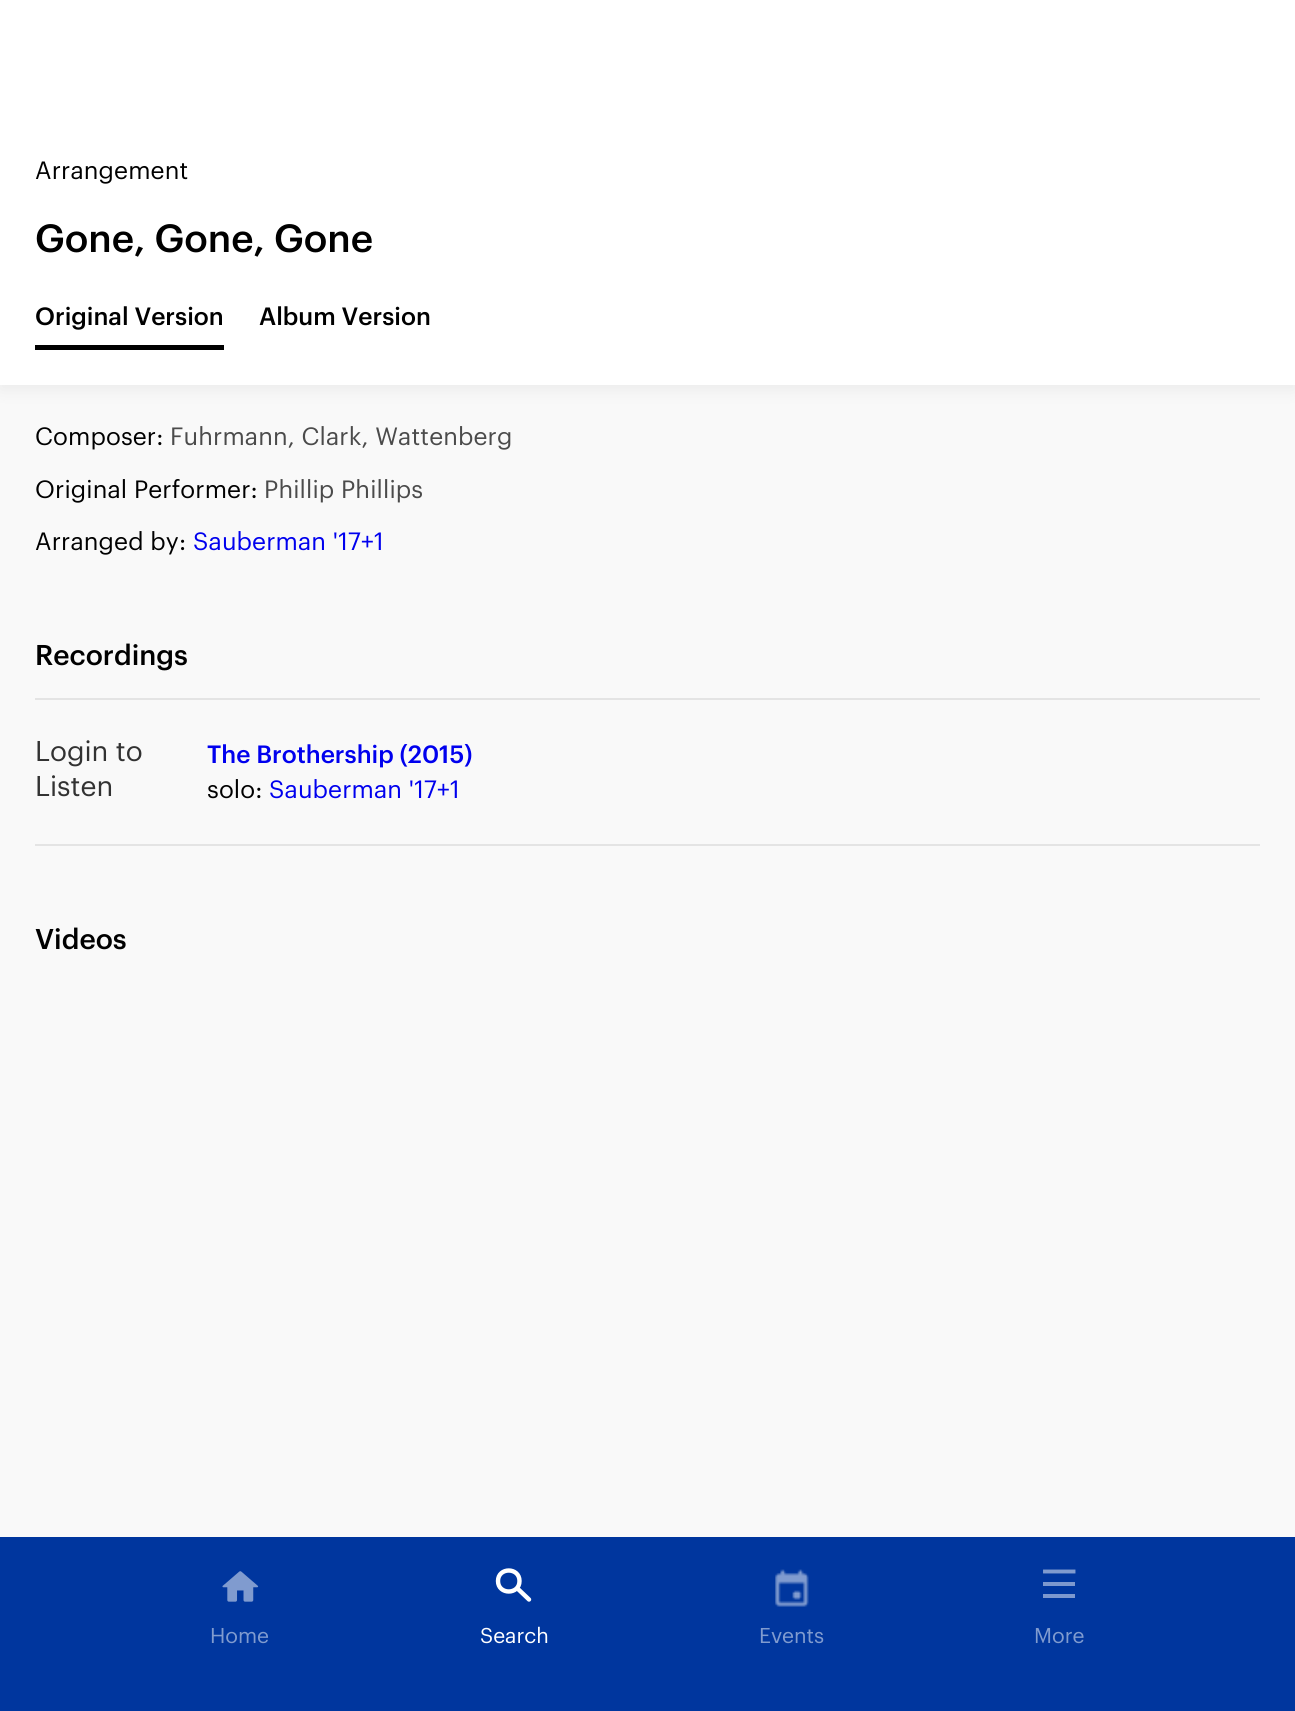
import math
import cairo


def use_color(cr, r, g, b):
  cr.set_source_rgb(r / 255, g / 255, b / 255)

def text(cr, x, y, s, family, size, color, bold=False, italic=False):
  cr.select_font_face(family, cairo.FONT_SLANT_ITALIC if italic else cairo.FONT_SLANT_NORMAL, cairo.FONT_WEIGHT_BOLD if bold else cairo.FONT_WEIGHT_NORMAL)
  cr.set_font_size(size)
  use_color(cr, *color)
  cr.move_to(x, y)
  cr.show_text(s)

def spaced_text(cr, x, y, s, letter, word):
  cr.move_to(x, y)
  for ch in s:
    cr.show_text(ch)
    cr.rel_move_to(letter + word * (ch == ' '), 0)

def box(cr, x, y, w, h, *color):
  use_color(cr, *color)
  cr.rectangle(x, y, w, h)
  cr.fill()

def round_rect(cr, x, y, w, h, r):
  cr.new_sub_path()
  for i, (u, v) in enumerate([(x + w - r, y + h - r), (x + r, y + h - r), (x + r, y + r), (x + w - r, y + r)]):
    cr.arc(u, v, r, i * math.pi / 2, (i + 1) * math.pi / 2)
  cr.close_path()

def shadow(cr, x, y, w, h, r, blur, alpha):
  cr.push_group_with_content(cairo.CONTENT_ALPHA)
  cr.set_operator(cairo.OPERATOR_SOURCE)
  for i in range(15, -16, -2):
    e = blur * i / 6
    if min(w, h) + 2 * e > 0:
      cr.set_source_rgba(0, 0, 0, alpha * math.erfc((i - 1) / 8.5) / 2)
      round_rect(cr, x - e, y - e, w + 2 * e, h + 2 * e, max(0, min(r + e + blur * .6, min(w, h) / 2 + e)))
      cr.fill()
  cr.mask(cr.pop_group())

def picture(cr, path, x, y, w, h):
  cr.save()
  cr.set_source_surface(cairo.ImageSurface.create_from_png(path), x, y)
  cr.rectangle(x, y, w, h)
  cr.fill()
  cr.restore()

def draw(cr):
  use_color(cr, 249, 249, 249)
  cr.paint()
  use_color(cr, 0, 0, 0)
  shadow(cr, 0, 5, 1295, 385, 0, 9, 0.06)
  box(cr, 0, 0, 1295, 385, 255, 255, 255)
  box(cr, 35, 345, 189, 5, 0, 0, 0)
  box(cr, 35, 698, 1225, 2, 228, 228, 228)
  box(cr, 35, 844, 1225, 2, 228, 228, 228)
  box(cr, 0, 1537, 1295, 174, 0, 54, 158)
  picture(cr, "img_01.png", 222, 1571, 37, 31)
  cr.new_path()
  cr.move_to(519.5, 1581)
  cr.curve_to(519.5, 1595, 498, 1595, 498, 1581)
  cr.curve_to(498, 1567, 519.5, 1567, 519.5, 1581)
  cr.close_path()
  use_color(cr, 255, 255, 255)
  cr.set_line_width(4.4)
  cr.stroke()
  cr.new_path()
  cr.move_to(518.5, 1589.5)
  cr.line_to(529, 1599.5)
  cr.set_line_cap(cairo.LINE_CAP_ROUND)
  cr.set_line_join(cairo.LINE_JOIN_ROUND)
  cr.stroke()
  picture(cr, "img_02.png", 775, 1569, 34, 38)
  cr.new_path()
  cr.move_to(1045, 1571.5)
  cr.line_to(1073.5, 1571.5)
  use_color(cr, 128, 155, 207)
  cr.set_line_width(3.9)
  cr.set_line_cap(cairo.LINE_CAP_SQUARE)
  cr.set_line_join(cairo.LINE_JOIN_MITER)
  cr.stroke()
  box(cr, 1043, 1594, 32, 4, 125, 152, 206)
  box(cr, 1043, 1582, 32, 4, 125, 152, 206)
  cr.select_font_face("Graphik")
  cr.set_font_size(24.5)
  use_color(cr, 0, 0, 0)
  spaced_text(cr, 35, 179, "Arrangement", 0.15, 0)
  text(cr, 35, 252, "Gone, Gone, Gone", "Graphik Medium", 38.5, (0, 0, 0))
  text(cr, 35, 325, "Original Version", "Graphik Medium", 24.5, (0, 0, 0))
  text(cr, 259, 325, "Album Version", "Graphik Medium", 24.5, (0, 0, 0))
  cr.select_font_face("Graphik")
  spaced_text(cr, 35, 445, "Composer:", 0.15, 0)
  use_color(cr, 75, 75, 75)
  spaced_text(cr, 170, 445, "Fuhrmann, Clark, Wattenberg", 0.15, 0)
  use_color(cr, 0, 0, 0)
  spaced_text(cr, 35, 498, "Original Performer:", 0.15, 0)
  use_color(cr, 75, 75, 75)
  spaced_text(cr, 264, 498, "Phillip Phillips", 0.15, 0)
  use_color(cr, 0, 0, 0)
  spaced_text(cr, 35, 550, "Arranged by:", 0.15, 0)
  use_color(cr, 0, 0, 238)
  spaced_text(cr, 193, 550, "Sauberman '17+1", 0.15, 0)
  text(cr, 35, 665, "Recordings", "Graphik Medium", 28, (0, 0, 0))
  text(cr, 35, 761, "Login to", "Graphik", 28, (50, 50, 50))
  text(cr, 35, 796, "Listen", "Graphik", 28, (50, 50, 50))
  text(cr, 207, 763, "The Brothership (2015)", "Graphik Medium", 24.5, (0, 0, 238))
  cr.select_font_face("Graphik")
  use_color(cr, 0, 0, 0)
  spaced_text(cr, 207, 798, "solo:", 0.15, 0)
  use_color(cr, 0, 0, 238)
  spaced_text(cr, 269, 798, "Sauberman '17+1", 0.15, 0)
  text(cr, 35, 949, "Videos", "Graphik Medium", 28, (0, 0, 0))
  text(cr, 210, 1643, "Home", "Graphik", 21, (128, 155, 207))
  text(cr, 480, 1643, "Search", "Graphik", 21, (255, 255, 255))
  text(cr, 759, 1643, "Events", "Graphik", 21, (128, 155, 207))
  text(cr, 1034, 1643, "More", "Graphik", 21, (128, 155, 207))


surface = cairo.ImageSurface(cairo.FORMAT_RGB24, 1295, 1711)
cr = cairo.Context(surface)
options = cairo.FontOptions()
options.set_hint_metrics(cairo.HINT_METRICS_OFF)
options.set_hint_style(cairo.HINT_STYLE_NONE)
cr.set_font_options(options)
cr.set_miter_limit(4)
draw(cr)
surface.write_to_png("out.png")
